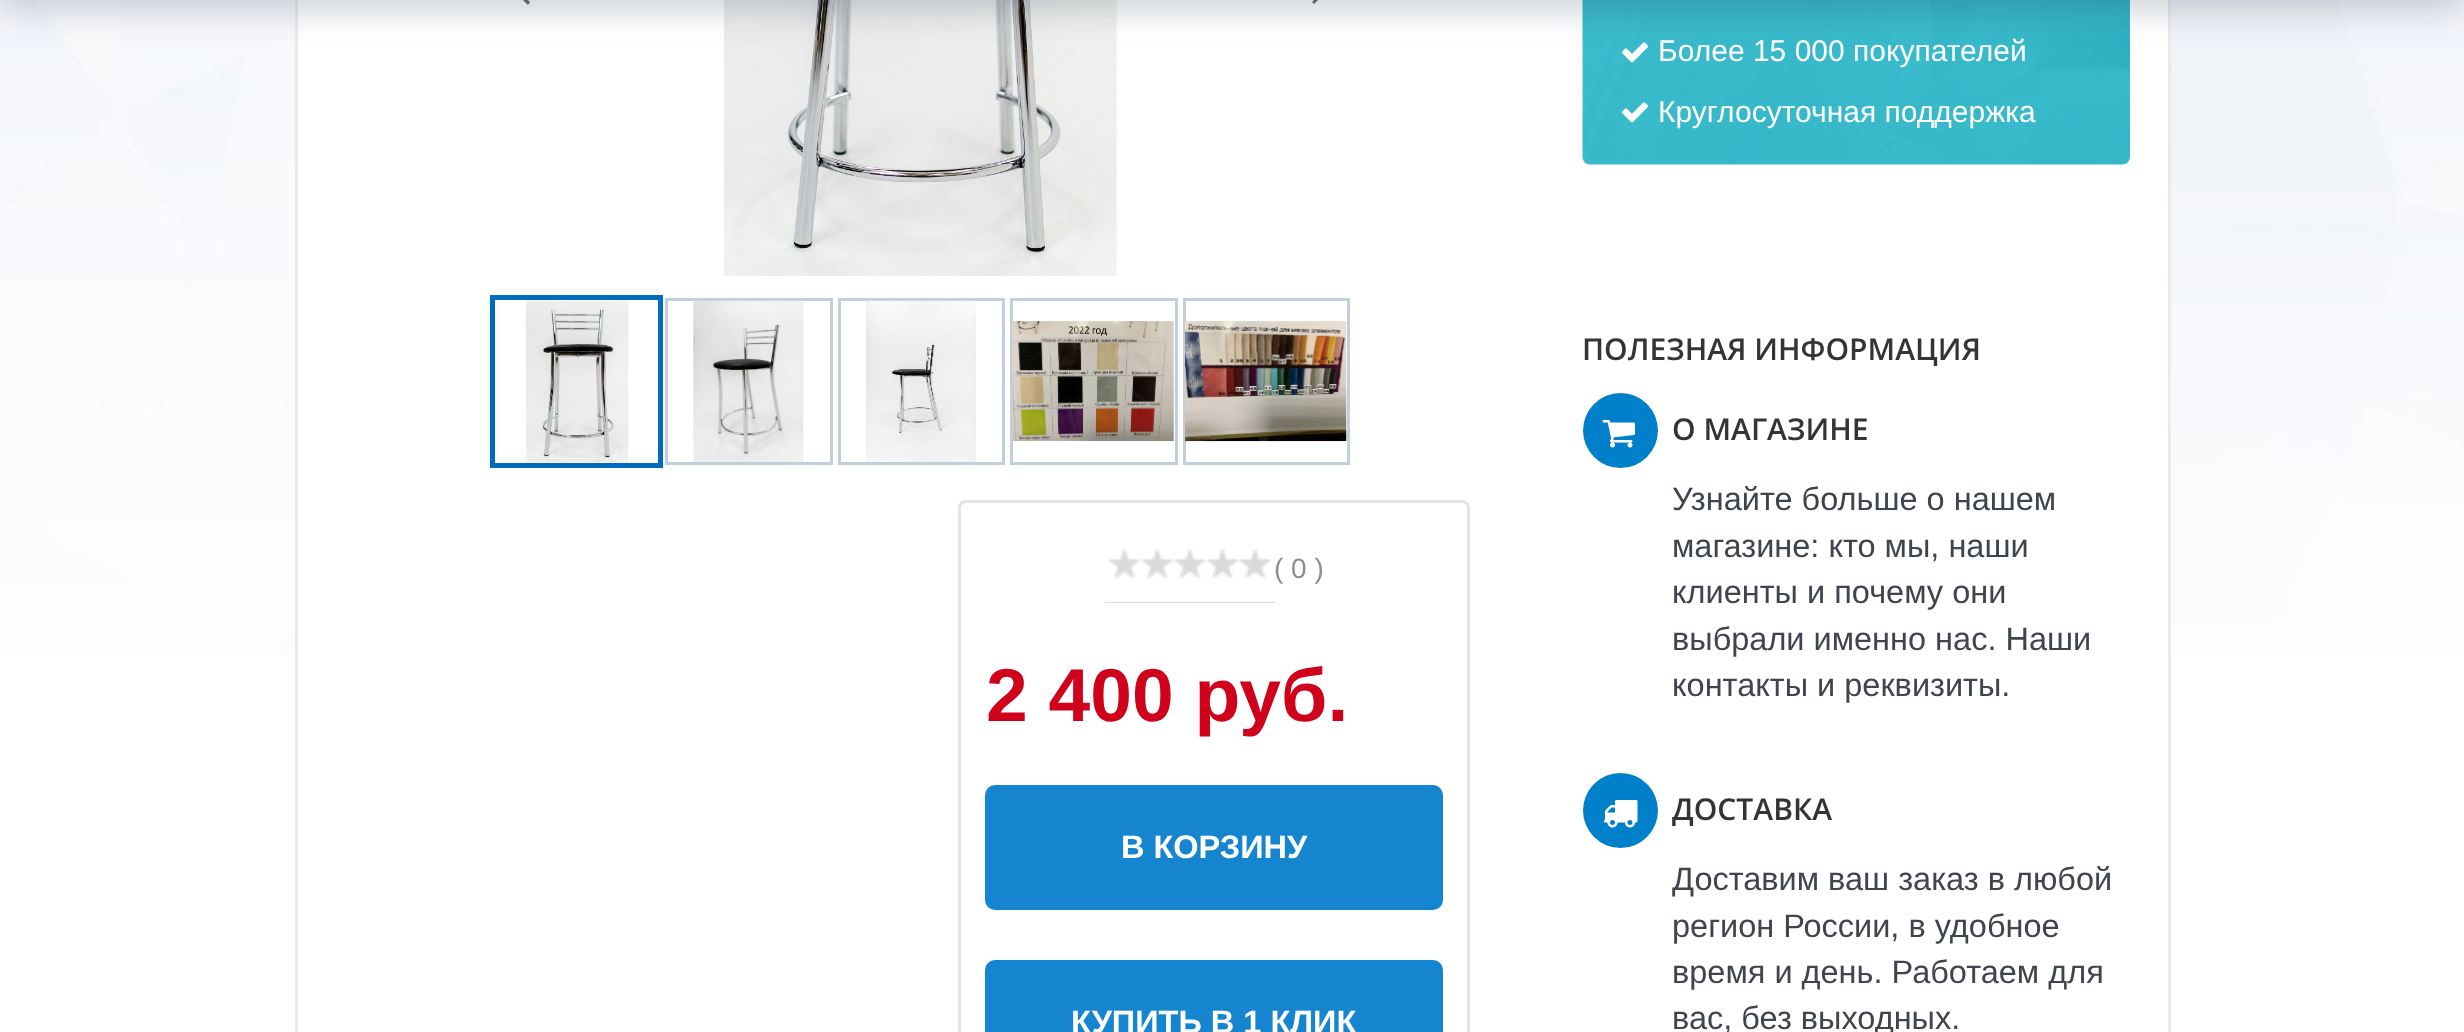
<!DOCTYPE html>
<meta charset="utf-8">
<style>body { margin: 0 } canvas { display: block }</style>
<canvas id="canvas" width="2464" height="1032"></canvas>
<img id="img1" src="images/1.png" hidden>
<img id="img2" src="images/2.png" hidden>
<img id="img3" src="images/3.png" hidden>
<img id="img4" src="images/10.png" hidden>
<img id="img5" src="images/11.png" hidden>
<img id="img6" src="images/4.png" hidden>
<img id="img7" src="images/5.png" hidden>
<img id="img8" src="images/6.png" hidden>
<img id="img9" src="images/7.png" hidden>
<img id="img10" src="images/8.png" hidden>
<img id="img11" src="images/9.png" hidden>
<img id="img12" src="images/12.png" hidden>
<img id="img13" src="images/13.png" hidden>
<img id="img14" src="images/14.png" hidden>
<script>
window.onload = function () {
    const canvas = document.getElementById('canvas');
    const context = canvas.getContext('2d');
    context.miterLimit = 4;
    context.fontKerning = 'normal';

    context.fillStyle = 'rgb(255, 255, 255)';
    context.fillRect(0, 0, 2464, 1032);
    context.drawImage(document.getElementById('img1'), 0, 0, 2464, 655);
    context.fillRect(298, 0, 1870, 655);
    context.fillStyle = 'rgb(234, 235, 236)';
    context.fillRect(2168, 0, 3, 1032);
    context.fillRect(295, 0, 3, 1032);
    context.fillStyle = 'rgb(110, 110, 110)';
    context.beginPath();
    context.moveTo(530, 2);
    context.lineTo(495, -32);
    context.lineTo(530, -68);
    context.lineTo(528, -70);
    context.lineTo(490, -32);
    context.lineTo(528, 5);
    context.closePath();
    context.fill('evenodd');
    context.drawImage(document.getElementById('img2'), 724, 0, 393, 276);
    context.drawImage(document.getElementById('img3'), 1116, 1, 1, 259);
    context.beginPath();
    context.moveTo(1312, -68);
    context.lineTo(1347, -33);
    context.lineTo(1312, 2);
    context.lineTo(1314, 4);
    context.lineTo(1352, -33);
    context.lineTo(1314, -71);
    context.closePath();
    context.fill('evenodd');
    context.drawImage(document.getElementById('img4'), 1582, 0, 548, 165);
    context.drawImage(document.getElementById('img5'), 1622, 42, 26, 21);
    context.fillStyle = 'rgba(32, 54, 74, 0.23)';
    context.filter = 'blur(17.5px)';
    context.beginPath();
    context.rect(0, -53, 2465, 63);
    context.fill();
    context.filter = 'none';
    context.strokeStyle = 'rgb(0, 108, 192)';
    context.lineWidth = 5;
    context.strokeRect(492.5, 297.5, 168, 168);
    context.drawImage(document.getElementById('img6'), 526, 300, 103, 162);
    context.strokeStyle = 'rgb(192, 207, 218)';
    context.lineWidth = 3;
    context.strokeRect(666.5, 299.5, 165, 164);
    context.drawImage(document.getElementById('img7'), 693, 300, 111, 162);
    context.strokeRect(839.5, 299.5, 164, 164);
    context.drawImage(document.getElementById('img8'), 866, 300, 110, 162);
    context.strokeRect(1011.5, 299.5, 165, 164);
    context.drawImage(document.getElementById('img9'), 1012, 321, 162, 121);
    context.strokeRect(1184.5, 299.5, 164, 164);
    context.drawImage(document.getElementById('img10'), 1185, 321, 162, 121);
    context.beginPath();
    context.roundRect(959.5, 501.5, 509, 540, 6.5);
    context.strokeStyle = 'rgb(228, 228, 228)';
    context.stroke();
    context.fillStyle = 'rgb(218, 218, 218)';
    context.fillRect(1105, 546, 170, 57);
    context.drawImage(document.getElementById('img11'), 1105, 528, 170, 74);
    context.fillStyle = 'rgb(20, 133, 206)';
    context.beginPath();
    context.roundRect(986.5, 786.5, 455, 122, 8.5);
    context.fill();
    context.strokeStyle = 'rgb(20, 133, 206)';
    context.stroke();
    context.beginPath();
    context.roundRect(986.5, 961.5, 455, 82, 8.5);
    context.fill();
    context.stroke();
    context.drawImage(document.getElementById('img12'), 1622, 102, 26, 21);
    context.fillStyle = 'rgb(0, 127, 202)';
    context.beginPath();
    context.arc(1620.5, 430.5, 37.5, 0, 2 * Math.PI);
    context.fill();
    context.drawImage(document.getElementById('img13'), 1602, 420, 33, 28);
    context.beginPath();
    context.arc(1620.5, 810.5, 37.5, 0, 2 * Math.PI);
    context.fill();
    context.drawImage(document.getElementById('img14'), 1603, 800, 35, 28);
    context.font = '28px Liberation Sans';
    context.fillStyle = 'rgb(141, 141, 141)';
    context.fillText('( 0 )', 1274, 578);
    context.font = 'bold 75px Liberation Sans';
    context.fillStyle = 'rgb(208, 2, 27)';
    context.fillText('2 400 руб.', 986, 721);
    context.font = 'bold 32.5px Liberation Sans';
    context.fillStyle = 'rgb(255, 255, 255)';
    context.fillText('В КОРЗИНУ', 1121, 858);
    context.fillText('КУПИТЬ В 1 КЛИК', 1071, 1033);
    context.font = '30px Liberation Sans';
    context.fillText('Более 15 000 покупателей', 1658, 61);
    context.fillText('Круглосуточная поддержка', 1658, 122);
    context.font = '600 30px Open Sans';
    context.fillStyle = 'rgb(52, 52, 52)';
    context.fillText('ПОЛЕЗНАЯ ИНФОРМАЦИЯ', 1582, 360);
    context.fillText('О МАГАЗИНЕ', 1672, 440);
    context.font = '32.5px Liberation Sans';
    context.fillStyle = 'rgb(62, 69, 76)';
    context.fillText('Узнайте больше о нашем', 1672, 510);
    context.fillText('магазине: кто мы, наши', 1672, 557);
    context.fillText('клиенты и почему они', 1672, 603);
    context.fillText('выбрали именно нас. Наши', 1672, 650);
    context.fillText('контакты и реквизиты.', 1672, 696);
    context.font = '600 30px Open Sans';
    context.fillStyle = 'rgb(52, 52, 52)';
    context.fillText('ДОСТАВКА', 1672, 820);
    context.font = '32.5px Liberation Sans';
    context.fillStyle = 'rgb(62, 69, 76)';
    context.fillText('Доставим ваш заказ в любой', 1672, 890);
    context.fillText('регион России, в удобное', 1672, 937);
    context.fillText('время и день. Работаем для', 1672, 983);
    context.fillText('вас, без выходных.', 1672, 1029);
};
</script>
